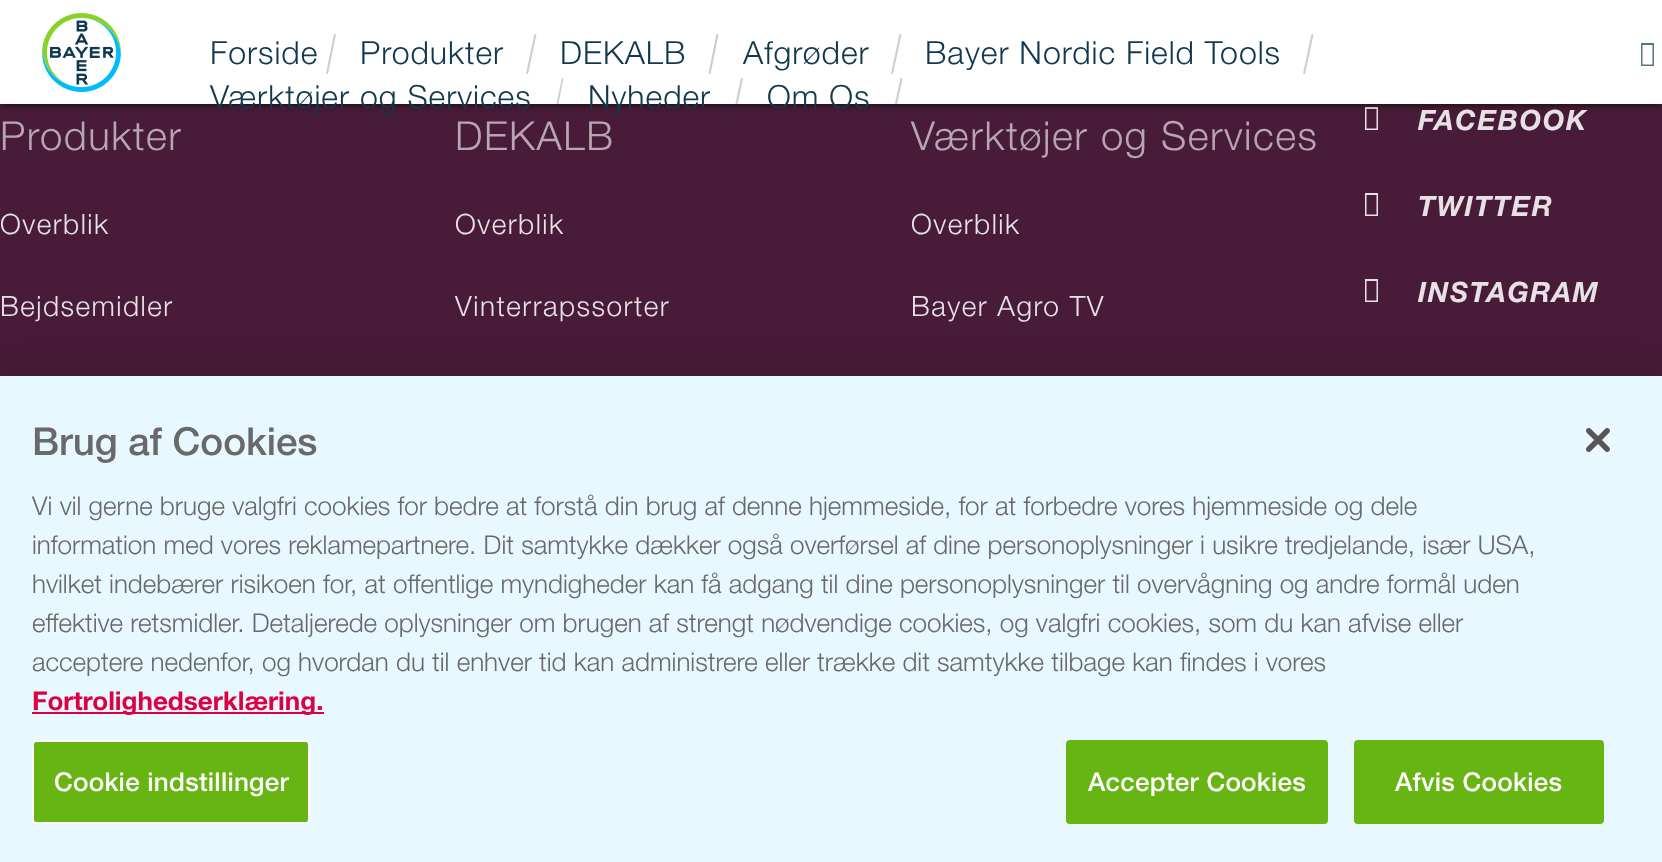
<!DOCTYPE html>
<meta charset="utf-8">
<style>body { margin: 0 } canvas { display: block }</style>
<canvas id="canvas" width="1662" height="862"></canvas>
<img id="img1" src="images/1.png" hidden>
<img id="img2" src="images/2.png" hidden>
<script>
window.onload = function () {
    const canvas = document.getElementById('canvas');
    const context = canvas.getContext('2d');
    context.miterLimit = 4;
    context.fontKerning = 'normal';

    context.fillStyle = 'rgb(72, 28, 56)';
    context.fillRect(0, 0, 1662, 862);
    context.fillStyle = 'rgb(231, 225, 229)';
    context.beginPath();
    context.moveTo(1365, 130);
    context.lineTo(1365, 107);
    context.lineTo(1378, 107);
    context.lineTo(1378, 130);
    context.closePath();
    context.moveTo(1366.5, 128.5);
    context.lineTo(1376.5, 128.5);
    context.lineTo(1376.5, 109);
    context.lineTo(1366.5, 109);
    context.closePath();
    context.fill();
    context.fillStyle = 'rgba(0, 0, 0, 0.12)';
    context.filter = 'blur(5px)';
    context.beginPath();
    context.rect(0, 2, 1662, 104);
    context.fill();
    context.filter = 'none';
    context.fillStyle = 'rgba(0, 0, 0, 0.14)';
    context.filter = 'blur(2px)';
    context.beginPath();
    context.rect(0, 4, 1662, 104);
    context.fill();
    context.filter = 'none';
    context.fillStyle = 'rgba(0, 0, 0, 0.2)';
    context.filter = 'blur(1px)';
    context.beginPath();
    context.rect(4, 10, 1654, 96);
    context.fill();
    context.filter = 'none';
    context.fillStyle = 'rgb(255, 255, 255)';
    context.fillRect(0, 0, 1662, 104);
    context.drawImage(document.getElementById('img1'), 42, 13, 79, 79);
    context.fillStyle = 'rgb(198, 207, 213)';
    context.beginPath();
    context.moveTo(334, 34);
    context.lineTo(336, 34.5);
    context.lineTo(328, 74);
    context.lineTo(326, 73.5);
    context.closePath();
    context.fill();
    context.beginPath();
    context.moveTo(534.5, 34);
    context.lineTo(536.5, 34.5);
    context.lineTo(528, 74);
    context.lineTo(526, 73.5);
    context.closePath();
    context.fill();
    context.beginPath();
    context.moveTo(716.5, 34);
    context.lineTo(718.5, 34.5);
    context.lineTo(710.5, 74);
    context.lineTo(708.5, 73.5);
    context.closePath();
    context.fill();
    context.beginPath();
    context.moveTo(899.5, 34);
    context.lineTo(901.5, 34.5);
    context.lineTo(893, 74);
    context.lineTo(891, 73.5);
    context.closePath();
    context.fill();
    context.beginPath();
    context.moveTo(1311.5, 34);
    context.lineTo(1313.5, 34.5);
    context.lineTo(1305, 74);
    context.lineTo(1303, 73.5);
    context.closePath();
    context.fill();
    context.fillStyle = 'rgba(16, 56, 79, 0.24)';
    context.beginPath();
    context.moveTo(562, 78);
    context.lineTo(563.5, 78.5);
    context.lineTo(555.5, 118);
    context.lineTo(553.5, 117.5);
    context.closePath();
    context.fill();
    context.beginPath();
    context.moveTo(741, 78);
    context.lineTo(743, 78.5);
    context.lineTo(734.5, 118);
    context.lineTo(732.5, 117.5);
    context.closePath();
    context.fill();
    context.beginPath();
    context.moveTo(900.5, 78);
    context.lineTo(902.5, 78.5);
    context.lineTo(894, 118);
    context.lineTo(892, 117.5);
    context.closePath();
    context.fill();
    context.fillStyle = 'rgb(88, 116, 132)';
    context.beginPath();
    context.moveTo(1641, 66);
    context.lineTo(1641, 43);
    context.lineTo(1654, 43);
    context.lineTo(1654, 66);
    context.closePath();
    context.moveTo(1642.5, 64.5);
    context.lineTo(1652.5, 64.5);
    context.lineTo(1652.5, 45);
    context.lineTo(1642.5, 45);
    context.closePath();
    context.fill();
    context.fillStyle = 'rgb(231, 225, 229)';
    context.beginPath();
    context.moveTo(1365, 216);
    context.lineTo(1365, 193);
    context.lineTo(1378, 193);
    context.lineTo(1378, 216);
    context.closePath();
    context.moveTo(1366.5, 214.5);
    context.lineTo(1376.5, 214.5);
    context.lineTo(1376.5, 195);
    context.lineTo(1366.5, 195);
    context.closePath();
    context.fill();
    context.beginPath();
    context.moveTo(1365, 302);
    context.lineTo(1365, 279);
    context.lineTo(1378, 279);
    context.lineTo(1378, 302);
    context.closePath();
    context.moveTo(1366.5, 300.5);
    context.lineTo(1376.5, 300.5);
    context.lineTo(1376.5, 281);
    context.lineTo(1366.5, 281);
    context.closePath();
    context.fill();
    context.fillStyle = 'rgba(0, 0, 0, 0.2)';
    context.filter = 'blur(18px)';
    context.beginPath();
    context.rect(0, 376, 1662, 486);
    context.fill();
    context.filter = 'none';
    context.fillStyle = 'rgb(231, 248, 255)';
    context.fillRect(0, 376, 1662, 486);
    context.fillStyle = 'rgb(222, 0, 67)';
    context.fillRect(32, 712, 292, 2);
    context.fillStyle = 'rgb(102, 181, 18)';
    context.beginPath();
    context.roundRect(33, 741, 276, 82, 3);
    context.fill();
    context.strokeStyle = 'rgb(255, 255, 255)';
    context.lineWidth = 2;
    context.stroke();
    context.beginPath();
    context.roundRect(1067, 741, 260, 82, 3);
    context.fill();
    context.strokeStyle = 'rgb(102, 181, 18)';
    context.stroke();
    context.beginPath();
    context.roundRect(1355, 741, 248, 82, 3);
    context.fill();
    context.stroke();
    context.drawImage(document.getElementById('img2'), 1586, 428, 24, 24);
    context.letterSpacing = '1px';
    context.font = '300 32px Helvetica Neue';
    context.fillStyle = 'rgb(16, 56, 79)';
    context.fillText('Forside', 210, 64);
    context.fillText('Produkter', 360, 64);
    context.fillText('DEKALB', 560, 64);
    context.fillText('Afgrøder', 743, 64);
    context.fillText('Bayer Nordic Field Tools', 925, 64);
    context.fillText('Værktøjer og Services', 210, 108);
    context.fillText('Nyheder', 588, 108);
    context.fillText('Om Os', 767, 108);
    context.letterSpacing = '1.5px';
    context.font = '300 40px Helvetica Neue';
    context.fillStyle = 'rgb(183, 166, 177)';
    context.fillText('Produkter', 0, 150);
    context.font = '300 28px Helvetica Neue';
    context.fillStyle = 'rgb(231, 225, 229)';
    context.fillText('Overblik', 0, 234);
    context.fillText('Bejdsemidler', 0, 316);
    context.font = '300 40px Helvetica Neue';
    context.fillStyle = 'rgb(183, 166, 177)';
    context.fillText('DEKALB', 455, 150);
    context.font = '300 28px Helvetica Neue';
    context.fillStyle = 'rgb(231, 225, 229)';
    context.fillText('Overblik', 455, 234);
    context.fillText('Vinterrapssorter', 455, 316);
    context.font = '300 40px Helvetica Neue';
    context.fillStyle = 'rgb(183, 166, 177)';
    context.fillText('Værktøjer og Services', 911, 150);
    context.font = '300 28px Helvetica Neue';
    context.fillStyle = 'rgb(231, 225, 229)';
    context.fillText('Overblik', 911, 234);
    context.fillText('Bayer Agro TV', 911, 316);
    context.font = 'italic bold 28px Helvetica Neue';
    context.fillText('FACEBOOK', 1418, 130);
    context.fillText('TWITTER', 1418, 216);
    context.fillText('INSTAGRAM', 1418, 302);
    context.letterSpacing = '0px';
    context.font = '500 38.5px Helvetica Neue';
    context.fillStyle = 'rgb(105, 105, 105)';
    context.fillText('Brug af Cookies', 32, 455);
    context.font = '300 26.02px Helvetica Neue';
    context.fillText('Vi vil gerne bruge valgfri cookies for bedre at forstå din brug af denne hjemmeside, for at forbedre vores hjemmeside og dele', 32, 515);
    context.fillText('information med vores reklamepartnere. Dit samtykke dækker også overførsel af dine personoplysninger i usikre tredjelande, især USA,', 32, 554);
    context.fillText('hvilket indebærer risikoen for, at offentlige myndigheder kan få adgang til dine personoplysninger til overvågning og andre formål uden', 32, 593);
    context.fillText('effektive retsmidler. Detaljerede oplysninger om brugen af strengt nødvendige cookies, og valgfri cookies, som du kan afvise eller', 32, 632);
    context.fillText('acceptere nedenfor, og hvordan du til enhver tid kan administrere eller trække dit samtykke tilbage kan findes i vores', 32, 671);
    context.font = 'bold 26.02px Helvetica Neue';
    context.fillStyle = 'rgb(222, 0, 67)';
    context.fillText('Fortrolighedserklæring.', 32, 710);
    context.letterSpacing = '0.25px';
    context.font = '500 26.02px Helvetica Neue';
    context.fillStyle = 'rgb(255, 255, 255)';
    context.fillText('Cookie indstillinger', 54, 791);
    context.fillText('Accepter Cookies', 1088, 791);
    context.fillText('Afvis Cookies', 1395, 791);
};
</script>
